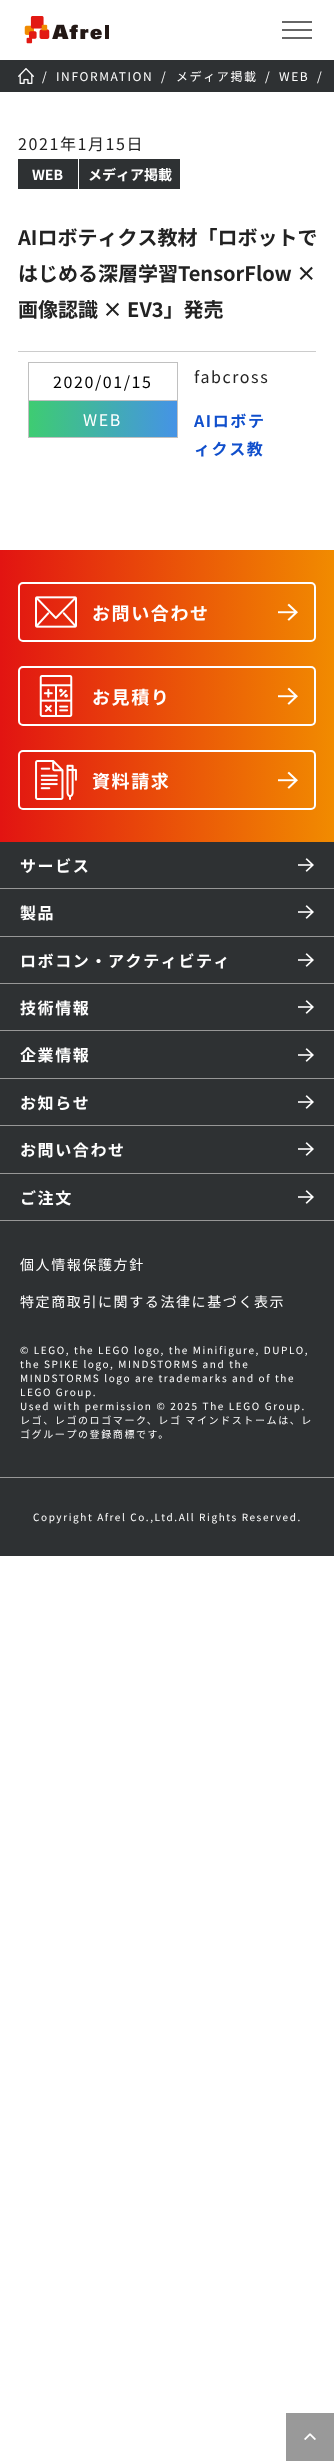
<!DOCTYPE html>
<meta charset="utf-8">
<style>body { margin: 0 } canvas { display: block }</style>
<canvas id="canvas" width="334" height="2461"></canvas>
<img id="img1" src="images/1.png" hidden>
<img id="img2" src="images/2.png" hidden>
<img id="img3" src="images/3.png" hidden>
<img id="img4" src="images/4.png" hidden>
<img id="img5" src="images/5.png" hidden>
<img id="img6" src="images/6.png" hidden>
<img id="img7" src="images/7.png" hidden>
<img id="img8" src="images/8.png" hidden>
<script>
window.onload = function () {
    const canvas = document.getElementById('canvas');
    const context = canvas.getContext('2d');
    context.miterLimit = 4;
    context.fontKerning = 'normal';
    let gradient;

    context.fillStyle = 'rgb(255, 255, 255)';
    context.fillRect(0, 0, 334, 2461);
    context.drawImage(document.getElementById('img1'), 24, 16, 85, 28);
    context.fillStyle = 'rgb(102, 102, 102)';
    context.fillRect(282, 21, 30, 2);
    context.fillRect(282, 29, 30, 2);
    context.fillRect(282, 37, 30, 2);
    context.fillStyle = 'rgb(46, 49, 51)';
    context.fillRect(0, 60, 334, 32);
    context.drawImage(document.getElementById('img2'), 18, 68, 16, 16);
    context.fillStyle = 'rgb(204, 204, 204)';
    context.fillRect(18, 351, 298, 1);
    context.fillStyle = 'rgb(46, 49, 51)';
    context.fillRect(18, 159, 60, 30);
    context.fillRect(79, 159, 101, 30);
    context.strokeStyle = 'rgb(192, 192, 192)';
    context.strokeRect(28.5, 362.5, 149, 75);
    context.fillStyle = 'rgb(192, 192, 192)';
    context.fillRect(29, 400, 148, 1);
    gradient = context.createLinearGradient(29, 419, 177, 419);
    gradient.addColorStop(0, 'rgb(62, 204, 114)');
    gradient.addColorStop(1, 'rgb(69, 147, 230)');
    context.fillStyle = gradient;
    context.fillRect(29, 401, 148, 36);
    gradient = context.createLinearGradient(0, 696, 334, 696);
    gradient.addColorStop(0, 'rgb(226, 20, 18)');
    gradient.addColorStop(1, 'rgb(241, 139, 0)');
    context.fillStyle = gradient;
    context.fillRect(0, 550, 334, 292);
    context.beginPath();
    context.roundRect(19, 583, 296, 58, 4);
    context.strokeStyle = 'rgb(255, 255, 255)';
    context.lineWidth = 2;
    context.stroke();
    context.drawImage(document.getElementById('img3'), 35, 596, 42, 32);
    context.drawImage(document.getElementById('img4'), 278, 603, 20, 18);
    context.beginPath();
    context.roundRect(19, 667, 296, 58, 4);
    context.stroke();
    context.drawImage(document.getElementById('img5'), 39, 675, 34, 42);
    context.drawImage(document.getElementById('img4'), 278, 687, 20, 18);
    context.beginPath();
    context.roundRect(19, 751, 296, 58, 4);
    context.stroke();
    context.drawImage(document.getElementById('img6'), 35, 760, 42, 40);
    context.drawImage(document.getElementById('img4'), 278, 771, 20, 18);
    context.fillStyle = 'rgb(46, 49, 51)';
    context.fillRect(0, 842, 334, 635);
    context.fillStyle = 'rgb(151, 151, 151)';
    context.fillRect(0, 888, 334, 1);
    context.drawImage(document.getElementById('img7'), 298, 858, 16, 14);
    context.fillRect(0, 936, 334, 1);
    context.drawImage(document.getElementById('img7'), 298, 905, 16, 14);
    context.fillRect(0, 983, 334, 1);
    context.drawImage(document.getElementById('img7'), 298, 953, 16, 14);
    context.fillRect(0, 1030, 334, 1);
    context.drawImage(document.getElementById('img7'), 298, 1000, 16, 14);
    context.fillRect(0, 1078, 334, 1);
    context.drawImage(document.getElementById('img7'), 298, 1048, 16, 14);
    context.fillRect(0, 1125, 334, 1);
    context.drawImage(document.getElementById('img7'), 298, 1095, 16, 14);
    context.fillRect(0, 1173, 334, 1);
    context.drawImage(document.getElementById('img7'), 298, 1142, 16, 14);
    context.fillRect(0, 1220, 334, 1);
    context.drawImage(document.getElementById('img7'), 298, 1190, 16, 14);
    context.fillStyle = 'rgb(153, 153, 153)';
    context.fillRect(286, 2413, 48, 48);
    context.drawImage(document.getElementById('img8'), 304, 2433, 12, 7);
    context.fillStyle = 'rgb(46, 49, 51)';
    context.fillRect(0, 1478, 334, 78);
    context.fillStyle = 'rgb(151, 151, 151)';
    context.fillRect(0, 1477, 334, 1);
    context.letterSpacing = '1.6px';
    context.font = '12px Noto Sans JP';
    context.fillStyle = 'rgb(255, 255, 255)';
    context.fillText('/', 42, 81);
    context.fillText('INFORMATION', 56, 81);
    context.fillText('/', 161, 81);
    context.fillText('メディア掲載', 176, 81);
    context.fillText('/', 265, 81);
    context.fillText('WEB', 279, 81);
    context.fillText('/', 317, 81);
    context.font = '16px Noto Sans JP';
    context.fillStyle = 'rgb(34, 34, 34)';
    context.fillText('2021年1月15日', 18, 150);
    context.letterSpacing = '0px';
    context.font = 'bold 14px Noto Sans JP';
    context.fillStyle = 'rgb(255, 255, 255)';
    context.fillText('WEB', 32, 180);
    context.fillText('メディア掲載', 88, 180);
    context.font = 'bold 20px Noto Sans JP';
    context.fillStyle = 'rgb(34, 34, 34)';
    context.fillText('AIロボティクス教材「ロボットで', 18, 245);
    context.fillText('はじめる深層学習TensorFlow ×', 18, 281);
    context.fillText('画像認識 × EV3」発売', 18, 317);
    context.letterSpacing = '1.6px';
    context.font = '16px Noto Sans JP';
    context.fillStyle = 'rgb(0, 0, 0)';
    context.fillText('2020/01/15', 53, 388);
    context.fillStyle = 'rgb(255, 255, 255)';
    context.fillText('WEB', 83, 426);
    context.fillStyle = 'rgb(34, 34, 34)';
    context.fillText('fabcross', 194, 383);
    context.font = 'bold 16px Noto Sans JP';
    context.fillStyle = 'rgb(16, 79, 204)';
    context.fillText('AIロボテ', 194, 427);
    context.fillText('ィクス教', 194, 455);
    context.font = 'bold 18px Noto Sans JP';
    context.fillStyle = 'rgb(255, 255, 255)';
    context.fillText('お問い合わせ', 92, 620);
    context.fillText('お見積り', 92, 704);
    context.fillText('資料請求', 92, 788);
    context.font = 'bold 16px Noto Sans JP';
    context.fillText('サービス', 20, 872);
    context.fillText('製品', 20, 919);
    context.fillText('ロボコン・アクティビティ', 20, 967);
    context.fillText('技術情報', 20, 1014);
    context.fillText('企業情報', 20, 1061);
    context.fillText('お知らせ', 20, 1109);
    context.fillText('お問い合わせ', 20, 1156);
    context.fillText('ご注文', 20, 1204);
    context.font = '14px Noto Sans JP';
    context.fillText('個人情報保護方針', 20, 1270);
    context.fillText('特定商取引に関する法律に基づく表示', 20, 1307);
    context.font = '10px Noto Sans JP';
    context.fillText('© LEGO, the LEGO logo, the Minifigure, DUPLO,', 20, 1354);
    context.fillText('the SPIKE logo, MINDSTORMS and the', 20, 1368);
    context.fillText('MINDSTORMS logo are trademarks and of the', 20, 1382);
    context.fillText('LEGO Group.', 20, 1396);
    context.fillText('Used with permission © 2025 The LEGO Group.', 20, 1410);
    context.fillText('レゴ、レゴのロゴマーク、レゴ マインドストームは、レ', 20, 1424);
    context.fillText('ゴグループの登録商標です。', 20, 1438);
    context.fillText('Copyright Afrel Co.,Ltd.All Rights Reserved.', 33, 1521);
};
</script>
